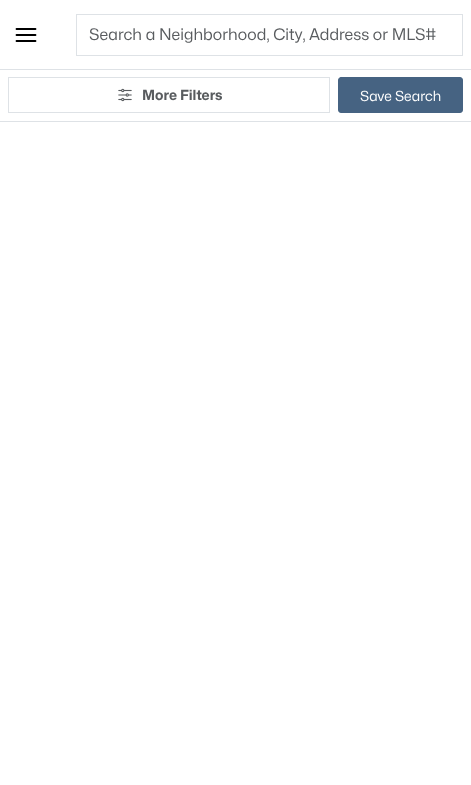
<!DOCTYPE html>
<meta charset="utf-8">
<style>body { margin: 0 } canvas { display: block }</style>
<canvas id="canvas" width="471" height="785"></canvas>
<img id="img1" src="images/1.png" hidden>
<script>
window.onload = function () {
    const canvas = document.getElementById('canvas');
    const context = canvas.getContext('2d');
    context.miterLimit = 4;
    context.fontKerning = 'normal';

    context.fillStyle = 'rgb(255, 255, 255)';
    context.fillRect(0, 0, 471, 785);
    context.fillStyle = 'rgb(222, 226, 230)';
    context.fillRect(0, 69, 471, 1);
    context.beginPath();
    context.moveTo(16.5, 29);
    context.lineTo(35.5, 29);
    context.moveTo(16.5, 35);
    context.lineTo(35.5, 35);
    context.moveTo(16.5, 41);
    context.lineTo(35.5, 41);
    context.strokeStyle = 'rgb(0, 0, 0)';
    context.lineWidth = 1.8;
    context.lineCap = 'round';
    context.lineJoin = 'round';
    context.stroke();
    context.strokeStyle = 'rgb(222, 226, 230)';
    context.lineWidth = 1;
    context.lineJoin = 'miter';
    context.strokeRect(76.5, 14.5, 386, 41);
    context.fillRect(0, 121, 471, 1);
    context.strokeRect(8.5, 77.5, 321, 35);
    context.drawImage(document.getElementById('img1'), 118, 88, 14, 14);
    context.fillStyle = 'rgb(70, 99, 130)';
    context.beginPath();
    context.roundRect(338.5, 77.5, 124, 35, 2.5);
    context.fill();
    context.strokeStyle = 'rgb(70, 99, 130)';
    context.stroke();
    context.font = '16px Mona Sans';
    context.fillStyle = 'rgb(89, 92, 95)';
    context.fillText('Search a Neighborhood, City, Address or MLS#', 89, 40);
    context.font = 'bold 14px Mona Sans';
    context.fillText('More Filters', 142, 100);
    context.font = '14px Mona Sans';
    context.fillStyle = 'rgb(255, 255, 255)';
    context.fillText('Save Search', 360, 101);
};
</script>
